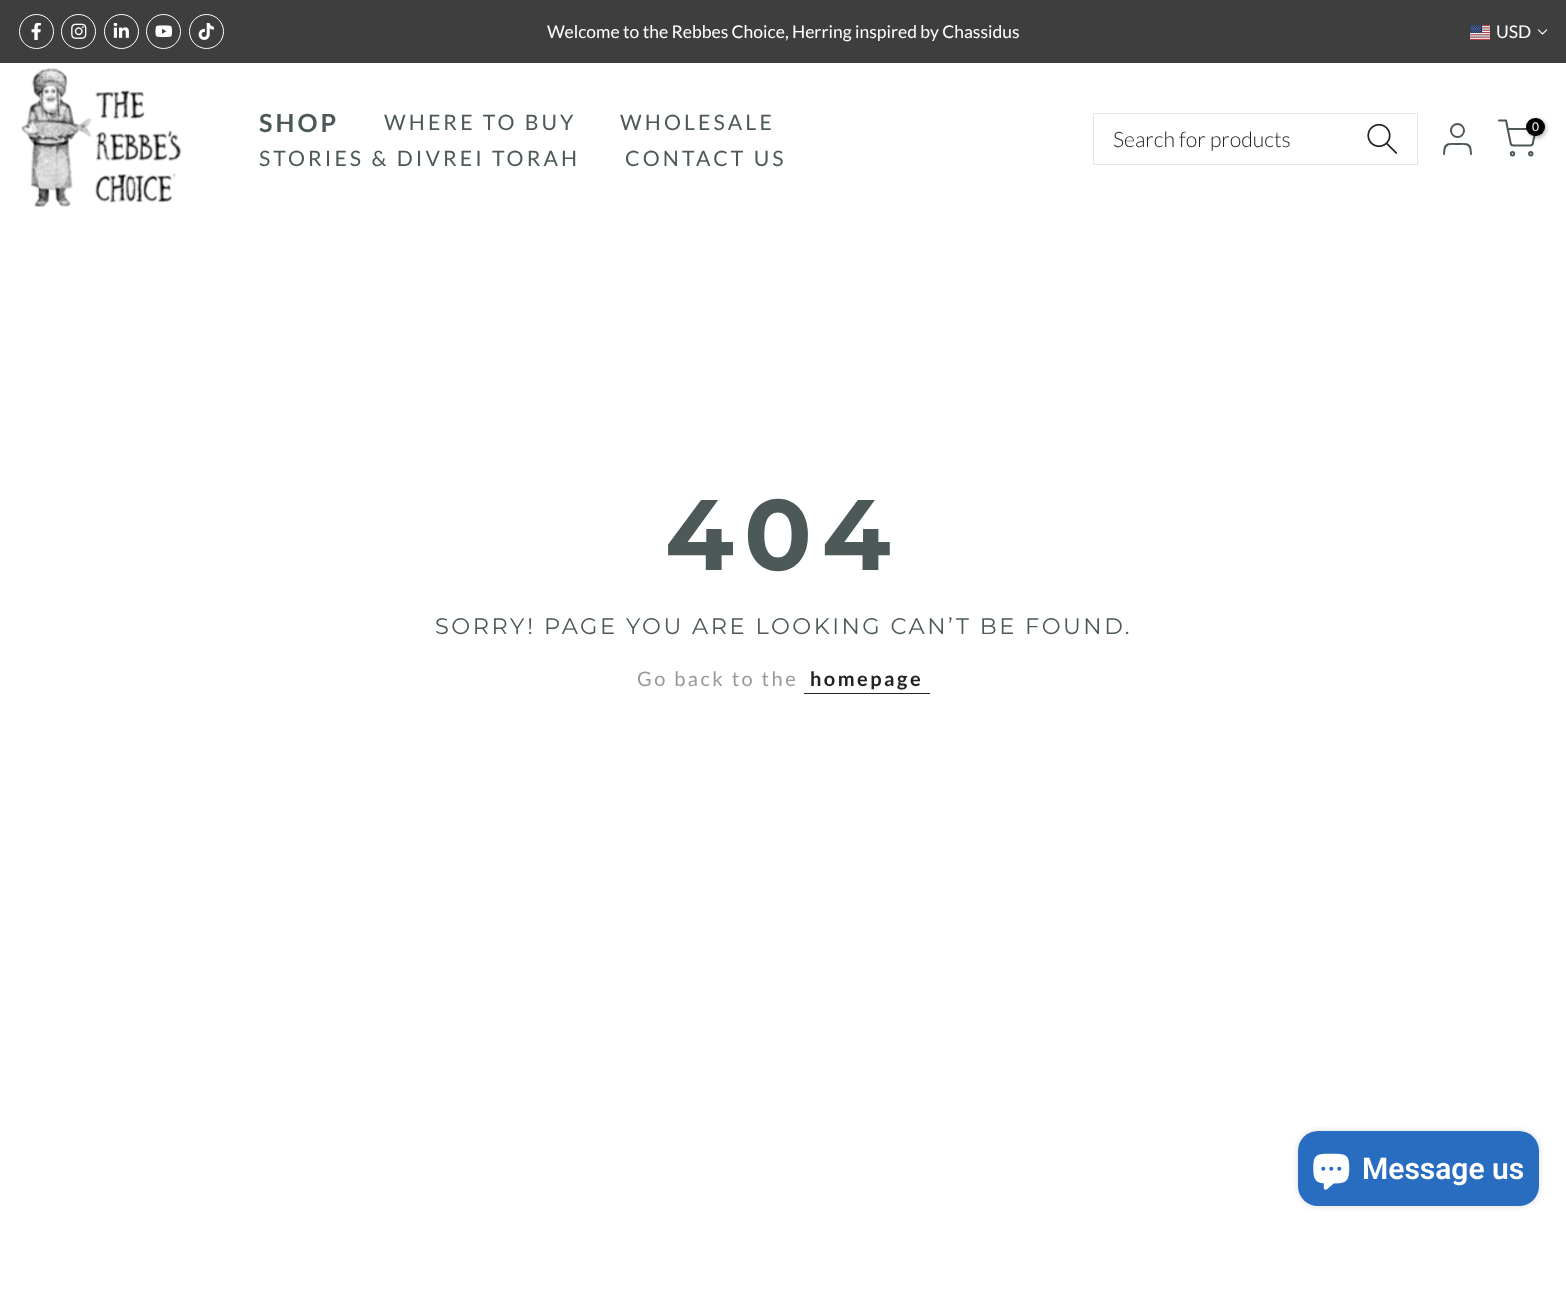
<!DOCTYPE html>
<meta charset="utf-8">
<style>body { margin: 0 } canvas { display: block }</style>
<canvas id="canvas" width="1566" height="1312"></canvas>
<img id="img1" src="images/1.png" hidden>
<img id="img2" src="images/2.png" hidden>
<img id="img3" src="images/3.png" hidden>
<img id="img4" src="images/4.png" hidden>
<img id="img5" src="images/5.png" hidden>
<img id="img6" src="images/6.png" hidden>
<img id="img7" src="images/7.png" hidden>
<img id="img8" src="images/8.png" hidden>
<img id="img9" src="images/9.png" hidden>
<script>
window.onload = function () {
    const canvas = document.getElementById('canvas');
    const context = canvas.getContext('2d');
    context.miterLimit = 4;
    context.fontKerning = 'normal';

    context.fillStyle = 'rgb(255, 255, 255)';
    context.fillRect(0, 0, 1566, 1312);
    context.fillStyle = 'rgb(62, 62, 62)';
    context.fillRect(0, 0, 1566, 63);
    context.beginPath();
    context.arc(36.5, 31.5, 17, 0, 2 * Math.PI);
    context.strokeStyle = 'rgb(255, 255, 255)';
    context.stroke();
    context.drawImage(document.getElementById('img1'), 31, 23, 10, 17);
    context.beginPath();
    context.arc(78.5, 31.5, 17, 0, 2 * Math.PI);
    context.stroke();
    context.drawImage(document.getElementById('img2'), 71, 23, 16, 16);
    context.beginPath();
    context.arc(121.5, 31.5, 17, 0, 2 * Math.PI);
    context.stroke();
    context.drawImage(document.getElementById('img3'), 113, 23, 16, 15);
    context.beginPath();
    context.arc(163.5, 31.5, 17, 0, 2 * Math.PI);
    context.stroke();
    context.drawImage(document.getElementById('img4'), 155, 25, 18, 13);
    context.beginPath();
    context.arc(206.5, 31.5, 17, 0, 2 * Math.PI);
    context.stroke();
    context.drawImage(document.getElementById('img5'), 198, 23, 16, 17);
    context.drawImage(document.getElementById('img6'), 1470, 25, 20, 15);
    context.beginPath();
    context.moveTo(1546.5, 30);
    context.lineTo(1542.5, 34);
    context.lineTo(1538.5, 30);
    context.lineWidth = 1.1;
    context.lineCap = 'square';
    context.stroke();
    context.drawImage(document.getElementById('img7'), 21, 68, 161, 139);
    context.strokeStyle = 'rgb(228, 230, 230)';
    context.lineWidth = 1;
    context.strokeRect(1093.5, 113.5, 324, 51);
    context.drawImage(document.getElementById('img8'), 1367, 123, 31, 31);
    context.beginPath();
    context.arc(1457.5, 130.5, 6.5, 0, 2 * Math.PI);
    context.strokeStyle = 'rgb(77, 89, 89)';
    context.lineWidth = 2;
    context.stroke();
    context.beginPath();
    context.moveTo(1471, 154);
    context.lineTo(1470.5, 149);
    context.bezierCurveTo(1469.5, 142.5, 1462.5, 144, 1457.5, 144);
    context.bezierCurveTo(1452.5, 144, 1445.5, 142.5, 1444.5, 149);
    context.lineTo(1444, 154);
    context.lineCap = 'round';
    context.lineJoin = 'round';
    context.stroke();
    context.beginPath();
    context.moveTo(1499, 120.5);
    context.lineTo(1506, 120.5);
    context.lineTo(1510.5, 142.5);
    context.bezierCurveTo(1510.5, 144.5, 1512, 145.5, 1513.5, 145.5);
    context.lineTo(1530, 145.5);
    context.bezierCurveTo(1531.5, 145.5, 1533, 144.5, 1533, 142.5);
    context.lineTo(1536, 129);
    context.lineTo(1507.5, 129);
    context.stroke();
    context.fillStyle = 'rgba(0, 0, 0, 0.3)';
    context.filter = 'blur(2px)';
    context.beginPath();
    context.roundRect(1528, 119, 18, 19, 9);
    context.fill();
    context.filter = 'none';
    context.fillStyle = 'rgb(0, 0, 0)';
    context.beginPath();
    context.roundRect(1526, 118, 19, 18, 9);
    context.fill();
    context.beginPath();
    context.arc(1512.5, 153.8, 1.7, 0, 2 * Math.PI);
    context.stroke();
    context.beginPath();
    context.arc(1530.8, 153.8, 1.7, 0, 2 * Math.PI);
    context.stroke();
    context.fillStyle = 'rgb(34, 34, 34)';
    context.fillRect(804, 693, 126, 1);
    context.fillStyle = 'rgba(0, 0, 0, 0.15)';
    context.filter = 'blur(3px)';
    context.beginPath();
    context.roundRect(1298, 1131, 241, 75, 20);
    context.fill();
    context.filter = 'none';
    context.fillStyle = 'rgb(41, 109, 193)';
    context.beginPath();
    context.roundRect(1298, 1131, 241, 75, 20);
    context.fill();
    context.drawImage(document.getElementById('img9'), 1313, 1153, 37, 37);
    context.font = '17.5px Lato';
    context.fillStyle = 'rgb(255, 255, 255)';
    context.fillText('Welcome to the Rebbes Choice, Herring inspired by Chassidus', 547, 38);
    context.fillText('USD', 1496, 38);
    context.letterSpacing = '3.1px';
    context.font = 'bold 25px Lato';
    context.fillStyle = 'rgb(77, 89, 89)';
    context.fillText('SHOP', 259, 132);
    context.font = '21.25px Lato';
    context.fillText('WHERE TO BUY', 384, 130);
    context.fillText('WHOLESALE', 620, 130);
    context.fillText('STORIES & DIVREI TORAH', 259, 166);
    context.fillText('CONTACT US', 625, 166);
    context.letterSpacing = '0px';
    context.font = '300 21.25px Lato';
    context.fillStyle = 'rgb(34, 34, 34)';
    context.fillText('Search for products', 1113, 147);
    context.font = '12px Lato';
    context.fillStyle = 'rgb(255, 255, 255)';
    context.fillText('0', 1532, 131);
    context.letterSpacing = '10px';
    context.font = 'bold 100px Montserrat';
    context.fillStyle = 'rgb(77, 89, 89)';
    context.fillText('404', 665, 570);
    context.letterSpacing = '2.5px';
    context.font = '22.5px Montserrat';
    context.fillText('SORRY! PAGE YOU ARE LOOKING CAN’T BE FOUND.', 435, 634);
    context.font = '20px Lato';
    context.fillStyle = 'rgb(153, 153, 153)';
    context.fillText('Go back to the', 637, 686);
    context.font = 'bold 20px Lato';
    context.fillStyle = 'rgb(34, 34, 34)';
    context.fillText('homepage', 810, 686);
    context.letterSpacing = '0px';
    context.font = '600 30px Roboto';
    context.fillStyle = 'rgb(255, 255, 255)';
    context.fillText('Message us', 1362, 1179);
};
</script>
